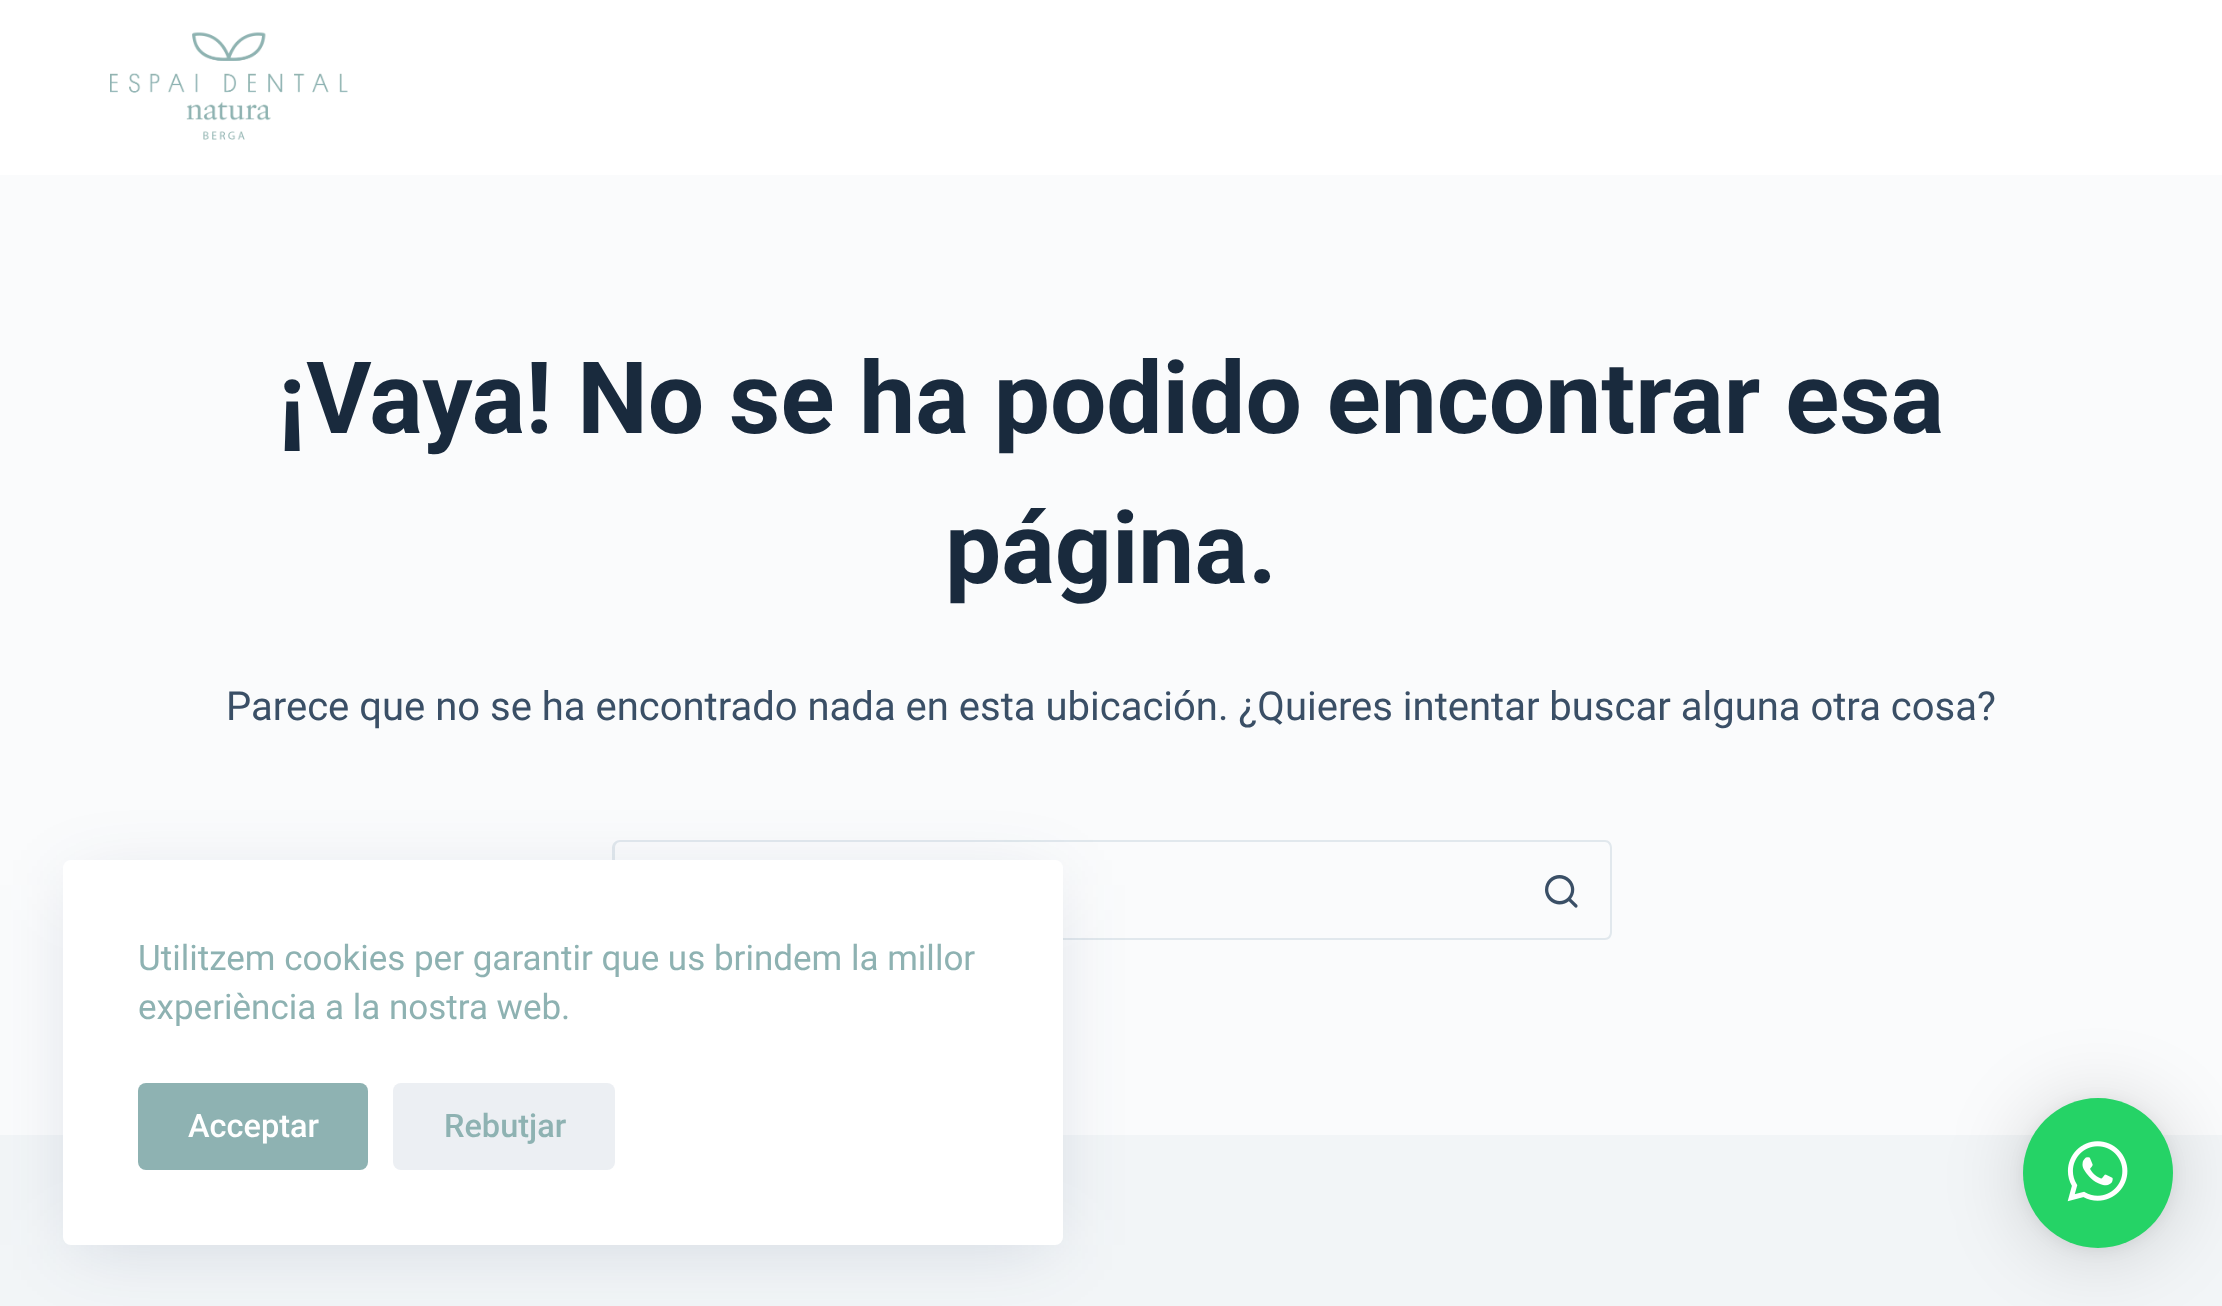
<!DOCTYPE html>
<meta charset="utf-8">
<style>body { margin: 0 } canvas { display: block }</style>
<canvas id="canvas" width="2222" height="1306"></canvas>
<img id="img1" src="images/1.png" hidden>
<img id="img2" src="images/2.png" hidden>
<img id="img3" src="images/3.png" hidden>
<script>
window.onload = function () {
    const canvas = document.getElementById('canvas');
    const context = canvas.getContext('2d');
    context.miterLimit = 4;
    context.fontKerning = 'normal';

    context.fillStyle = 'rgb(250, 251, 252)';
    context.fillRect(0, 0, 2222, 1306);
    context.fillStyle = 'rgb(255, 255, 255)';
    context.fillRect(0, 0, 2222, 175);
    context.drawImage(document.getElementById('img1'), 110, 32, 238, 108);
    context.fillStyle = 'rgb(225, 232, 237)';
    context.beginPath();
    context.moveTo(620, 840);
    context.lineTo(1512, 840);
    context.lineTo(1512, 940);
    context.lineTo(620, 940);
    context.bezierCurveTo(616, 940, 612, 937, 612, 932);
    context.lineTo(612, 848);
    context.bezierCurveTo(612, 843, 616, 840, 620, 840);
    context.closePath();
    context.moveTo(620, 842);
    context.lineTo(1512, 842);
    context.lineTo(1512, 938);
    context.lineTo(620, 938);
    context.bezierCurveTo(617, 938, 615, 935, 615, 932);
    context.lineTo(615, 848);
    context.bezierCurveTo(615, 845, 617, 842, 620, 842);
    context.closePath();
    context.fill('evenodd');
    context.beginPath();
    context.moveTo(1512, 840);
    context.lineTo(1605, 840);
    context.bezierCurveTo(1609, 840, 1612, 843, 1612, 848);
    context.lineTo(1612, 932);
    context.bezierCurveTo(1612, 937, 1609, 940, 1605, 940);
    context.lineTo(1512, 940);
    context.closePath();
    context.moveTo(1512, 842);
    context.lineTo(1605, 842);
    context.bezierCurveTo(1608, 842, 1610, 845, 1610, 848);
    context.lineTo(1610, 932);
    context.bezierCurveTo(1610, 935, 1608, 938, 1605, 938);
    context.lineTo(1512, 938);
    context.closePath();
    context.fill('evenodd');
    context.drawImage(document.getElementById('img2'), 1545, 875, 33, 33);
    context.fillStyle = 'rgb(242, 245, 247)';
    context.fillRect(0, 1135, 2222, 171);
    context.fillStyle = 'rgba(34, 56, 101, 0.15)';
    context.filter = 'blur(37.5px)';
    context.beginPath();
    context.rect(75, 885, 975, 360);
    context.fill();
    context.filter = 'none';
    context.fillStyle = 'rgb(255, 255, 255)';
    context.beginPath();
    context.roundRect(63, 860, 1000, 385, 8);
    context.fill();
    context.fillStyle = 'rgb(142, 178, 178)';
    context.beginPath();
    context.roundRect(138, 1083, 230, 87, 8);
    context.fill();
    context.fillStyle = 'rgb(236, 239, 243)';
    context.beginPath();
    context.roundRect(393, 1083, 222, 87, 8);
    context.fill();
    context.fillStyle = 'rgba(0, 0, 0, 0.16)';
    context.filter = 'blur(40px)';
    context.beginPath();
    context.roundRect(2023, 1103, 150, 150, 75);
    context.fill();
    context.filter = 'none';
    context.fillStyle = 'rgba(0, 0, 0, 0.06)';
    context.filter = 'blur(7.5px)';
    context.beginPath();
    context.roundRect(2023, 1100, 150, 150, 75);
    context.fill();
    context.filter = 'none';
    context.fillStyle = 'rgb(37, 211, 102)';
    context.beginPath();
    context.arc(2098, 1173, 75, 0, 2 * Math.PI);
    context.fill();
    context.drawImage(document.getElementById('img3'), 2067, 1141, 61, 61);
    context.font = 'bold 100px Roboto';
    context.fillStyle = 'rgb(25, 42, 61)';
    context.fillText('¡Vaya! No se ha podido encontrar esa', 278, 433);
    context.fillText('página.', 945, 583);
    context.font = '40px Roboto';
    context.fillStyle = 'rgb(58, 79, 102)';
    context.fillText('Parece que no se ha encontrado nada en esta ubicación. ¿Quieres intentar buscar alguna otra cosa?', 226, 720);
    context.font = '35px Roboto';
    context.fillStyle = 'rgb(142, 178, 178)';
    context.fillText('Utilitzem cookies per garantir que us brindem la millor', 138, 970);
    context.fillText('experiència a la nostra web.', 138, 1019);
    context.font = '500 32.5px Roboto';
    context.fillStyle = 'rgb(255, 255, 255)';
    context.fillText('Acceptar', 188, 1137);
    context.fillStyle = 'rgb(142, 178, 178)';
    context.fillText('Rebutjar', 444, 1137);
};
</script>
